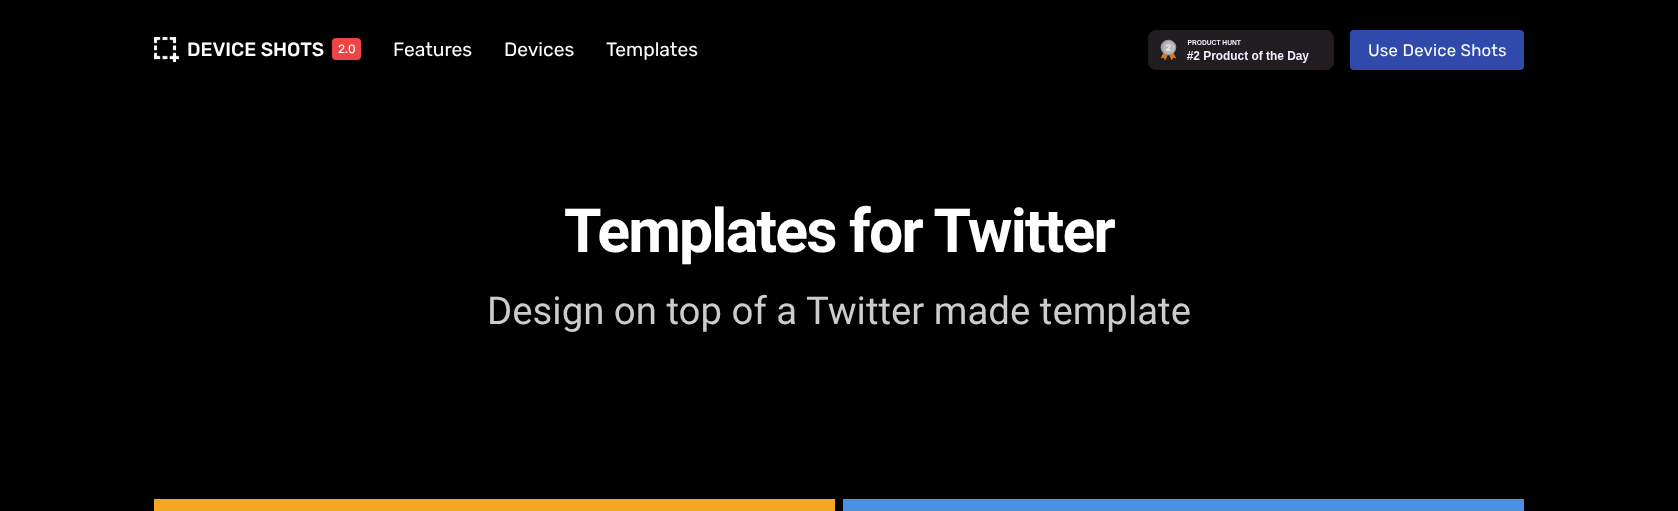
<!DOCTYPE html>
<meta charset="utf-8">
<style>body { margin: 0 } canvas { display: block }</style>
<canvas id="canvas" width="1678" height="511"></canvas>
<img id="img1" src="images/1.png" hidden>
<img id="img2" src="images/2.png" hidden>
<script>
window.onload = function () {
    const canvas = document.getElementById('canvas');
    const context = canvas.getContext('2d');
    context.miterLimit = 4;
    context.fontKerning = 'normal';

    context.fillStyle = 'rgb(0, 0, 0)';
    context.fillRect(0, 0, 1678, 511);
    context.drawImage(document.getElementById('img1'), 154, 37, 25, 25);
    context.fillStyle = 'rgb(239, 68, 68)';
    context.beginPath();
    context.roundRect(332, 38, 29, 22, 4);
    context.fill();
    context.drawImage(document.getElementById('img2'), 1148, 30, 186, 40);
    context.fillStyle = 'rgb(48, 74, 171)';
    context.beginPath();
    context.roundRect(1351, 31, 172, 38, 3);
    context.fill();
    context.strokeStyle = 'rgb(48, 74, 171)';
    context.lineWidth = 2;
    context.stroke();
    context.fillStyle = 'rgb(245, 166, 35)';
    context.fillRect(154, 499, 681, 12);
    context.fillStyle = 'rgb(73, 144, 226)';
    context.fillRect(843, 499, 681, 12);
    context.font = '500 19.25px Rubik';
    context.fillStyle = 'rgb(255, 255, 255)';
    context.fillText('DEVICE SHOTS', 187, 56);
    context.font = '12px Rubik';
    context.fillText('2.0', 338, 53);
    context.font = '19.25px Rubik';
    context.fillText('Features', 393, 56);
    context.fillText('Devices', 504, 56);
    context.fillText('Templates', 606, 56);
    context.letterSpacing = '0.2px';
    context.font = '16.75px Rubik';
    context.fillText('Use Device Shots', 1368, 56);
    context.letterSpacing = '-1.8px';
    context.font = 'bold 60.75px Roboto';
    context.fillText('Templates for Twitter', 564, 252);
    context.letterSpacing = '0px';
    context.font = '38.4px Roboto';
    context.fillStyle = 'rgb(204, 204, 204)';
    context.fillText('Design on top of a Twitter made template', 487, 324);
};
</script>
